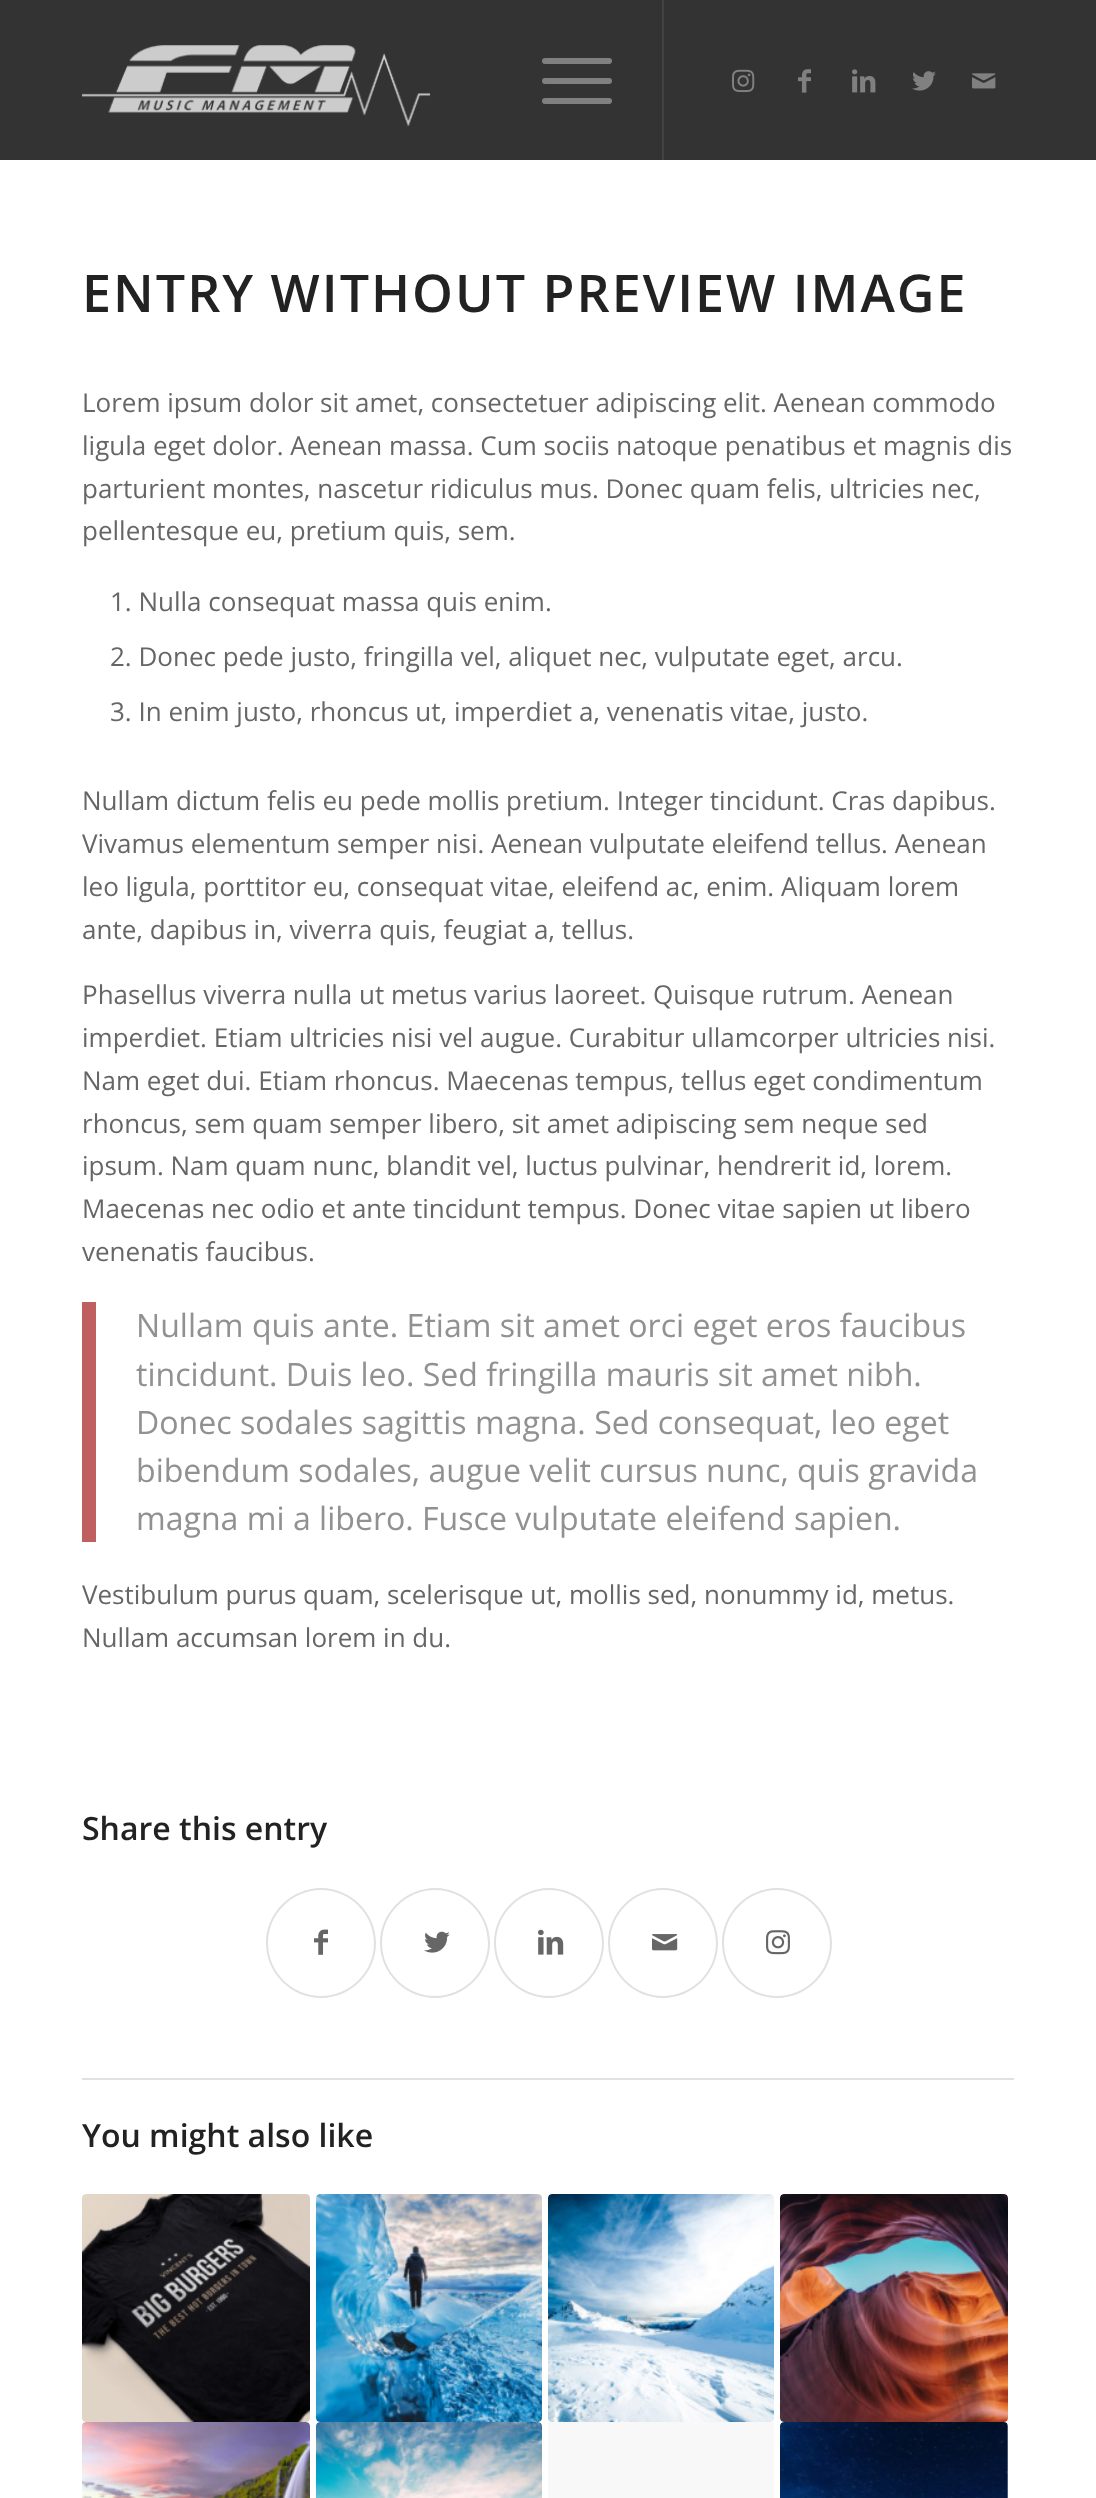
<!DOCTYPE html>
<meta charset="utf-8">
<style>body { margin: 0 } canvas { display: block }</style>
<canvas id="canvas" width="1096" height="2498"></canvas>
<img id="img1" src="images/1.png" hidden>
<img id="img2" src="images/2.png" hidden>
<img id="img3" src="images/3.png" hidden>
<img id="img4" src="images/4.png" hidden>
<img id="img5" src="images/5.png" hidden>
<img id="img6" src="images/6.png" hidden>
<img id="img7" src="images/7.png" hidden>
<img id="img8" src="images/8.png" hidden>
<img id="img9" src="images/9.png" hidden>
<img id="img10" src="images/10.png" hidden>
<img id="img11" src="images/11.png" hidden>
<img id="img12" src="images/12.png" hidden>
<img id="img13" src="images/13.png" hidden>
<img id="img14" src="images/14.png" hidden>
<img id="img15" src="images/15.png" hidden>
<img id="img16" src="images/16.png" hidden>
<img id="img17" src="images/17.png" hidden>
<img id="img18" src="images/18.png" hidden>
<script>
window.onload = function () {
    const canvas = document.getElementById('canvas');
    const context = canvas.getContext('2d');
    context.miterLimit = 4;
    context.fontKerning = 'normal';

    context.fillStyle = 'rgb(255, 255, 255)';
    context.fillRect(0, 0, 1096, 2498);
    context.fillStyle = 'rgb(51, 51, 51)';
    context.fillRect(0, 0, 1096, 160);
    context.drawImage(document.getElementById('img1'), 82, 45, 348, 82);
    context.fillStyle = 'rgb(66, 66, 66)';
    context.fillRect(662, 0, 2, 160);
    context.fillStyle = 'rgb(128, 128, 128)';
    context.beginPath();
    context.roundRect(542, 78, 70, 6, 3);
    context.fill();
    context.beginPath();
    context.roundRect(542, 58, 70, 6, 3);
    context.fill();
    context.beginPath();
    context.roundRect(542, 98, 70, 6, 3);
    context.fill();
    context.drawImage(document.getElementById('img2'), 732, 69, 23, 24);
    context.drawImage(document.getElementById('img3'), 798, 69, 13, 24);
    context.drawImage(document.getElementById('img4'), 852, 69, 24, 24);
    context.drawImage(document.getElementById('img5'), 912, 71, 24, 20);
    context.drawImage(document.getElementById('img6'), 972, 73, 24, 16);
    context.fillStyle = 'rgb(192, 95, 95)';
    context.fillRect(82, 1302, 14, 240);
    context.fillStyle = 'rgb(225, 225, 225)';
    context.beginPath();
    context.moveTo(321, 1888);
    context.bezierCurveTo(351, 1888, 376, 1913, 376, 1943);
    context.bezierCurveTo(376, 1973, 351, 1998, 321, 1998);
    context.bezierCurveTo(291, 1998, 266, 1973, 266, 1943);
    context.bezierCurveTo(266, 1913, 291, 1888, 321, 1888);
    context.closePath();
    context.moveTo(321, 1890);
    context.bezierCurveTo(292, 1890, 268, 1914, 268, 1943);
    context.bezierCurveTo(268, 1972, 292, 1996, 321, 1996);
    context.bezierCurveTo(350, 1996, 374, 1972, 374, 1943);
    context.bezierCurveTo(374, 1914, 350, 1890, 321, 1890);
    context.closePath();
    context.fill('evenodd');
    context.drawImage(document.getElementById('img7'), 314, 1929, 14, 26);
    context.beginPath();
    context.moveTo(435, 1888);
    context.bezierCurveTo(465, 1888, 490, 1913, 490, 1943);
    context.bezierCurveTo(490, 1973, 465, 1998, 435, 1998);
    context.bezierCurveTo(405, 1998, 380, 1973, 380, 1943);
    context.bezierCurveTo(380, 1913, 405, 1888, 435, 1888);
    context.closePath();
    context.moveTo(435, 1890);
    context.bezierCurveTo(406, 1890, 382, 1914, 382, 1943);
    context.bezierCurveTo(382, 1972, 406, 1996, 435, 1996);
    context.bezierCurveTo(464, 1996, 488, 1972, 488, 1943);
    context.bezierCurveTo(488, 1914, 464, 1890, 435, 1890);
    context.closePath();
    context.fill('evenodd');
    context.drawImage(document.getElementById('img8'), 424, 1931, 26, 22);
    context.beginPath();
    context.moveTo(549, 1888);
    context.bezierCurveTo(579, 1888, 604, 1913, 604, 1943);
    context.bezierCurveTo(604, 1973, 579, 1998, 549, 1998);
    context.bezierCurveTo(519, 1998, 494, 1973, 494, 1943);
    context.bezierCurveTo(494, 1913, 519, 1888, 549, 1888);
    context.closePath();
    context.moveTo(549, 1890);
    context.bezierCurveTo(520, 1890, 496, 1914, 496, 1943);
    context.bezierCurveTo(496, 1972, 520, 1996, 549, 1996);
    context.bezierCurveTo(578, 1996, 602, 1972, 602, 1943);
    context.bezierCurveTo(602, 1914, 578, 1890, 549, 1890);
    context.closePath();
    context.fill('evenodd');
    context.drawImage(document.getElementById('img9'), 538, 1929, 26, 26);
    context.beginPath();
    context.moveTo(663, 1888);
    context.bezierCurveTo(693, 1888, 718, 1913, 718, 1943);
    context.bezierCurveTo(718, 1973, 693, 1998, 663, 1998);
    context.bezierCurveTo(633, 1998, 608, 1973, 608, 1943);
    context.bezierCurveTo(608, 1913, 633, 1888, 663, 1888);
    context.closePath();
    context.moveTo(663, 1890);
    context.bezierCurveTo(634, 1890, 610, 1914, 610, 1943);
    context.bezierCurveTo(610, 1972, 634, 1996, 663, 1996);
    context.bezierCurveTo(692, 1996, 716, 1972, 716, 1943);
    context.bezierCurveTo(716, 1914, 692, 1890, 663, 1890);
    context.closePath();
    context.fill('evenodd');
    context.drawImage(document.getElementById('img10'), 652, 1934, 26, 17);
    context.beginPath();
    context.moveTo(777, 1888);
    context.bezierCurveTo(807, 1888, 832, 1913, 832, 1943);
    context.bezierCurveTo(832, 1973, 807, 1998, 777, 1998);
    context.bezierCurveTo(747, 1998, 722, 1973, 722, 1943);
    context.bezierCurveTo(722, 1913, 747, 1888, 777, 1888);
    context.closePath();
    context.moveTo(777, 1890);
    context.bezierCurveTo(748, 1890, 724, 1914, 724, 1943);
    context.bezierCurveTo(724, 1972, 748, 1996, 777, 1996);
    context.bezierCurveTo(806, 1996, 830, 1972, 830, 1943);
    context.bezierCurveTo(830, 1914, 806, 1890, 777, 1890);
    context.closePath();
    context.fill('evenodd');
    context.drawImage(document.getElementById('img11'), 766, 1930, 24, 25);
    context.fillRect(82, 2078, 932, 2);
    context.drawImage(document.getElementById('img12'), 82, 2194, 228, 228);
    context.drawImage(document.getElementById('img13'), 316, 2194, 226, 228);
    context.drawImage(document.getElementById('img14'), 548, 2194, 226, 228);
    context.drawImage(document.getElementById('img15'), 780, 2194, 228, 228);
    context.drawImage(document.getElementById('img16'), 82, 2422, 228, 76);
    context.drawImage(document.getElementById('img17'), 316, 2422, 226, 76);
    context.fillStyle = 'rgb(248, 248, 248)';
    context.fillRect(548, 2422, 226, 76);
    context.drawImage(document.getElementById('img18'), 780, 2422, 228, 76);
    context.letterSpacing = '2px';
    context.font = '600 52px Open Sans';
    context.fillStyle = 'rgb(34, 34, 34)';
    context.fillText('ENTRY WITHOUT PREVIEW IMAGE', 82, 312);
    context.letterSpacing = '0px';
    context.font = '26px Open Sans';
    context.fillStyle = 'rgb(102, 102, 102)';
    context.fillText('Lorem ipsum dolor sit amet, consectetuer adipiscing elit. Aenean commodo', 82, 412);
    context.fillText('ligula eget dolor. Aenean massa. Cum sociis natoque penatibus et magnis dis', 82, 455);
    context.fillText('parturient montes, nascetur ridiculus mus. Donec quam felis, ultricies nec,', 82, 498);
    context.fillText('pellentesque eu, pretium quis, sem.', 82, 540);
    context.fillText('1. Nulla consequat massa quis enim.', 110, 611);
    context.fillText('2. Donec pede justo, fringilla vel, aliquet nec, vulputate eget, arcu.', 110, 666);
    context.fillText('3. In enim justo, rhoncus ut, imperdiet a, venenatis vitae, justo.', 110, 721);
    context.fillText('Nullam dictum felis eu pede mollis pretium. Integer tincidunt. Cras dapibus.', 82, 810);
    context.fillText('Vivamus elementum semper nisi. Aenean vulputate eleifend tellus. Aenean', 82, 853);
    context.fillText('leo ligula, porttitor eu, consequat vitae, eleifend ac, enim. Aliquam lorem', 82, 896);
    context.fillText('ante, dapibus in, viverra quis, feugiat a, tellus.', 82, 939);
    context.fillText('Phasellus viverra nulla ut metus varius laoreet. Quisque rutrum. Aenean', 82, 1004);
    context.fillText('imperdiet. Etiam ultricies nisi vel augue. Curabitur ullamcorper ultricies nisi.', 82, 1047);
    context.fillText('Nam eget dui. Etiam rhoncus. Maecenas tempus, tellus eget condimentum', 82, 1090);
    context.fillText('rhoncus, sem quam semper libero, sit amet adipiscing sem neque sed', 82, 1133);
    context.fillText('ipsum. Nam quam nunc, blandit vel, luctus pulvinar, hendrerit id, lorem.', 82, 1175);
    context.fillText('Maecenas nec odio et ante tincidunt tempus. Donec vitae sapien ut libero', 82, 1218);
    context.fillText('venenatis faucibus.', 82, 1261);
    context.font = '32.1px Open Sans';
    context.fillStyle = 'rgb(145, 145, 145)';
    context.fillText('Nullam quis ante. Etiam sit amet orci eget eros faucibus', 136, 1337);
    context.fillText('tincidunt. Duis leo. Sed fringilla mauris sit amet nibh.', 136, 1386);
    context.fillText('Donec sodales sagittis magna. Sed consequat, leo eget', 136, 1434);
    context.fillText('bibendum sodales, augue velit cursus nunc, quis gravida', 136, 1482);
    context.fillText('magna mi a libero. Fusce vulputate eleifend sapien.', 136, 1530);
    context.font = '26px Open Sans';
    context.fillStyle = 'rgb(102, 102, 102)';
    context.fillText('Vestibulum purus quam, scelerisque ut, mollis sed, nonummy id, metus.', 82, 1604);
    context.fillText('Nullam accumsan lorem in du.', 82, 1647);
    context.font = '600 32px Open Sans';
    context.fillStyle = 'rgb(34, 34, 34)';
    context.fillText('Share this entry', 82, 1840);
    context.fillText('You might also like', 82, 2147);
};
</script>
